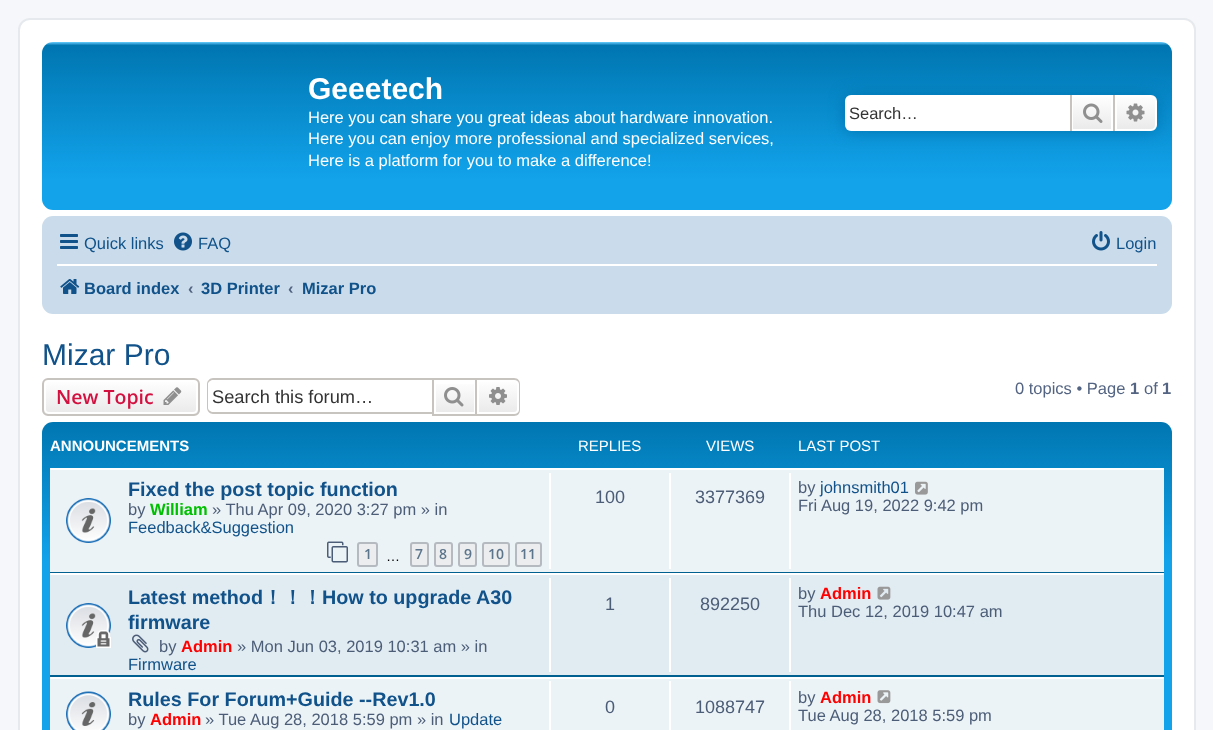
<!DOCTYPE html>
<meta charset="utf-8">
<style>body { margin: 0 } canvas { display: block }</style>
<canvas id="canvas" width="1213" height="730"></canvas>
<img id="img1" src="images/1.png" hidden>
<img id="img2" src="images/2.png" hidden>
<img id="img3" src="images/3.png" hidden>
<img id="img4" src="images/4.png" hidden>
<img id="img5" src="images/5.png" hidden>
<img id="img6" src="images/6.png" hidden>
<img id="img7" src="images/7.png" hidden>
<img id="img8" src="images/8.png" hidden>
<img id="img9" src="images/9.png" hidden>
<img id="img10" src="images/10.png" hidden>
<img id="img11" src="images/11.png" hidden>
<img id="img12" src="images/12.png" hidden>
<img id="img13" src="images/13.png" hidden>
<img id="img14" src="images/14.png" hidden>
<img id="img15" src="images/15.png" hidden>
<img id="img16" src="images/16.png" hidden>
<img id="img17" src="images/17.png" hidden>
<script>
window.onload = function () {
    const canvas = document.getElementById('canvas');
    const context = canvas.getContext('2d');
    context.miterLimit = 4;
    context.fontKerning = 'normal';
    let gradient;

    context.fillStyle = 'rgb(245, 247, 250)';
    context.fillRect(0, 0, 1213, 730);
    context.fillStyle = 'rgb(255, 255, 255)';
    context.beginPath();
    context.roundRect(19, 19, 1176, 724, 11);
    context.fill();
    context.strokeStyle = 'rgb(230, 233, 237)';
    context.lineWidth = 2;
    context.stroke();
    gradient = context.createLinearGradient(607, 42, 607, 210);
    gradient.addColorStop(0, 'rgb(106, 206, 255)');
    gradient.addColorStop(0.02, 'rgb(0, 118, 177)');
    gradient.addColorStop(0.82, 'rgb(18, 163, 235)');
    gradient.addColorStop(1, 'rgb(18, 163, 235)');
    context.fillStyle = gradient;
    context.beginPath();
    context.roundRect(42, 42, 1130, 168, 11);
    context.fill();
    context.fillStyle = 'rgb(0, 117, 176)';
    context.filter = 'blur(7.5px)';
    context.beginPath();
    context.roundRect(845, 95, 312, 36, 6);
    context.fill();
    context.filter = 'none';
    context.fillStyle = 'rgb(255, 255, 255)';
    context.beginPath();
    context.roundRect(845, 95, 225, 36, [6, 0, 0, 6]);
    context.fill();
    gradient = context.createLinearGradient(1092, 95, 1092, 131);
    gradient.addColorStop(0, 'rgb(255, 255, 255)');
    gradient.addColorStop(1, 'rgb(233, 233, 233)');
    context.fillStyle = gradient;
    context.fillRect(1073, 97, 38, 32);
    context.strokeStyle = 'rgb(255, 255, 255)';
    context.strokeRect(1072, 96, 40, 34);
    context.fillStyle = 'rgb(199, 195, 191)';
    context.fillRect(1113, 95, 2, 36);
    context.fillRect(1070, 95, 2, 36);
    context.drawImage(document.getElementById('img1'), 1083, 103, 20, 20);
    gradient = context.createLinearGradient(1136, 95, 1136, 131);
    gradient.addColorStop(0, 'rgb(255, 255, 255)');
    gradient.addColorStop(1, 'rgb(233, 233, 233)');
    context.fillStyle = gradient;
    context.beginPath();
    context.roundRect(1116, 96, 40, 34, [0, 5, 5, 0]);
    context.fill();
    context.stroke();
    context.drawImage(document.getElementById('img2'), 1126, 103, 19, 19);
    context.fillStyle = 'rgb(202, 220, 235)';
    context.beginPath();
    context.roundRect(42, 216, 1130, 98, 11);
    context.fill();
    context.drawImage(document.getElementById('img3'), 60, 234, 18, 15);
    context.drawImage(document.getElementById('img4'), 174, 232, 18, 19);
    context.drawImage(document.getElementById('img5'), 1092, 231, 18, 20);
    context.fillStyle = 'rgb(255, 255, 255)';
    context.fillRect(57, 264, 1100, 2);
    context.drawImage(document.getElementById('img6'), 60, 279, 20, 15);
    context.save();
    context.beginPath();
    context.roundRect(42, 378, 158, 38, 6);
    context.clip();
    gradient = context.createLinearGradient(121, 380, 121, 414);
    gradient.addColorStop(0, 'rgb(255, 255, 255)');
    gradient.addColorStop(1, 'rgb(233, 233, 233)');
    context.fillStyle = gradient;
    context.fillRect(42, 380, 158, 34);
    context.restore();
    context.beginPath();
    context.roundRect(45, 381, 152, 32, 4);
    context.stroke();
    context.beginPath();
    context.roundRect(43, 379, 156, 36, 5);
    context.strokeStyle = 'rgb(199, 195, 191)';
    context.stroke();
    context.drawImage(document.getElementById('img7'), 163, 387, 19, 18);
    context.fillStyle = 'rgb(199, 195, 191)';
    context.beginPath();
    context.moveTo(213, 378);
    context.lineTo(432, 378);
    context.lineTo(432, 414);
    context.lineTo(213, 414);
    context.bezierCurveTo(210, 414, 207, 411, 207, 408);
    context.lineTo(207, 384);
    context.bezierCurveTo(207, 381, 210, 378, 213, 378);
    context.closePath();
    context.moveTo(213, 380);
    context.lineTo(432, 380);
    context.lineTo(432, 412);
    context.lineTo(213, 412);
    context.bezierCurveTo(211, 412, 208, 410, 208, 408);
    context.lineTo(208, 384);
    context.bezierCurveTo(208, 382, 211, 380, 213, 380);
    context.closePath();
    context.fill('evenodd');
    gradient = context.createLinearGradient(455, 380, 455, 414);
    gradient.addColorStop(0, 'rgb(255, 255, 255)');
    gradient.addColorStop(1, 'rgb(233, 233, 233)');
    context.fillStyle = gradient;
    context.fillRect(436, 384, 38, 28);
    context.strokeRect(433, 379, 43, 36);
    context.drawImage(document.getElementById('img8'), 444, 387, 20, 20);
    gradient = context.createLinearGradient(498, 380, 498, 414);
    gradient.addColorStop(0, 'rgb(255, 255, 255)');
    gradient.addColorStop(1, 'rgb(233, 233, 233)');
    context.fillStyle = gradient;
    context.beginPath();
    context.roundRect(478, 381, 40, 32, [0, 4, 4, 0]);
    context.fill();
    context.strokeStyle = 'rgb(255, 255, 255)';
    context.stroke();
    context.fillStyle = 'rgb(199, 195, 191)';
    context.beginPath();
    context.moveTo(477, 378);
    context.lineTo(514, 378);
    context.bezierCurveTo(518, 378, 520, 381, 520, 384);
    context.lineTo(520, 410);
    context.bezierCurveTo(520, 413, 518, 416, 514, 416);
    context.lineTo(477, 416);
    context.closePath();
    context.moveTo(477, 380);
    context.lineTo(514, 380);
    context.bezierCurveTo(517, 380, 519, 382, 519, 384);
    context.lineTo(519, 410);
    context.bezierCurveTo(519, 412, 517, 414, 514, 414);
    context.lineTo(477, 414);
    context.closePath();
    context.fill('evenodd');
    context.drawImage(document.getElementById('img9'), 489, 387, 18, 18);
    gradient = context.createLinearGradient(607, 421, 607, 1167);
    gradient.addColorStop(0, 'rgb(106, 206, 255)');
    gradient.addColorStop(0, 'rgb(0, 118, 177)');
    gradient.addColorStop(0.19, 'rgb(18, 163, 235)');
    gradient.addColorStop(1, 'rgb(18, 163, 235)');
    context.fillStyle = gradient;
    context.beginPath();
    context.roundRect(42, 422, 1130, 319, 11);
    context.fill();
    context.fillStyle = 'rgb(236, 243, 247)';
    context.fillRect(50, 470, 1114, 102);
    context.fillStyle = 'rgb(255, 255, 255)';
    context.fillRect(50, 468, 1114, 2);
    context.fillStyle = 'rgb(0, 96, 143)';
    context.fillRect(50, 572, 1114, 1);
    context.drawImage(document.getElementById('img10'), 66, 498, 45, 45);
    context.drawImage(document.getElementById('img11'), 327, 541, 21, 22);
    context.fillStyle = 'rgb(236, 237, 238)';
    context.beginPath();
    context.roundRect(358, 543, 19, 23, 2);
    context.fill();
    context.strokeStyle = 'rgb(180, 186, 192)';
    context.stroke();
    context.beginPath();
    context.roundRect(411, 543, 17, 23, 2);
    context.fill();
    context.stroke();
    context.beginPath();
    context.roundRect(435, 543, 17, 23, 2);
    context.fill();
    context.stroke();
    context.beginPath();
    context.roundRect(459, 543, 17, 23, 2);
    context.fill();
    context.stroke();
    context.beginPath();
    context.roundRect(483, 543, 26, 23, 2);
    context.fill();
    context.stroke();
    context.beginPath();
    context.roundRect(516, 543, 25, 23, 2);
    context.fill();
    context.stroke();
    context.fillStyle = 'rgb(255, 255, 255)';
    context.fillRect(549, 473, 2, 96);
    context.fillRect(669, 473, 2, 96);
    context.fillRect(789, 473, 2, 96);
    context.drawImage(document.getElementById('img12'), 915, 481, 13, 14);
    context.fillStyle = 'rgb(225, 235, 242)';
    context.fillRect(50, 575, 1114, 100);
    context.fillStyle = 'rgb(255, 255, 255)';
    context.fillRect(50, 573, 1114, 2);
    context.fillStyle = 'rgb(0, 96, 143)';
    context.fillRect(50, 675, 1114, 2);
    context.drawImage(document.getElementById('img13'), 66, 603, 45, 45);
    context.drawImage(document.getElementById('img14'), 132, 634, 17, 19);
    context.fillStyle = 'rgb(255, 255, 255)';
    context.fillRect(549, 578, 2, 94);
    context.fillRect(669, 578, 2, 94);
    context.fillRect(789, 578, 2, 94);
    context.drawImage(document.getElementById('img15'), 877, 586, 14, 14);
    context.fillStyle = 'rgb(236, 243, 247)';
    context.fillRect(50, 679, 1114, 51);
    context.fillStyle = 'rgb(255, 255, 255)';
    context.fillRect(50, 677, 1114, 2);
    context.drawImage(document.getElementById('img16'), 66, 691, 45, 39);
    context.fillRect(549, 681, 2, 49);
    context.fillRect(669, 681, 2, 49);
    context.fillRect(789, 681, 2, 49);
    context.drawImage(document.getElementById('img17'), 877, 690, 14, 14);
    context.font = 'bold 30px Liberation Sans';
    context.fillText('Geeetech', 308, 99);
    context.font = '16.5px Liberation Sans';
    context.fillText('Here you can share you great ideas about hardware innovation.', 308, 123);
    context.fillText('Here you can enjoy more professional and specialized services,', 308, 144);
    context.fillText('Here is a platform for you to make a difference!', 308, 166);
    context.fillStyle = 'rgb(51, 51, 51)';
    context.fillText('Search…', 849, 119);
    context.fillStyle = 'rgb(16, 82, 137)';
    context.fillText('Quick links', 84, 249);
    context.fillText('FAQ', 198, 249);
    context.fillText('Login', 1116, 249);
    context.font = 'bold 16.5px Liberation Sans';
    context.fillText('Board index', 84, 294);
    context.fillStyle = 'rgb(83, 100, 130)';
    context.fillText('‹', 188, 294);
    context.fillStyle = 'rgb(16, 82, 137)';
    context.fillText('3D Printer', 201, 294);
    context.fillStyle = 'rgb(83, 100, 130)';
    context.fillText('‹', 288, 294);
    context.fillStyle = 'rgb(16, 82, 137)';
    context.fillText('Mizar Pro', 302, 294);
    context.font = '30px Liberation Sans';
    context.fillText('Mizar Pro', 42, 365);
    context.font = '600 19.5px Open Sans';
    context.fillStyle = 'rgb(211, 17, 65)';
    context.fillText('New Topic', 56, 404);
    context.font = '18.25px Liberation Sans';
    context.fillStyle = 'rgb(51, 51, 51)';
    context.fillText('Search this forum…', 212, 403);
    context.font = '16.5px Liberation Sans';
    context.fillStyle = 'rgb(83, 100, 130)';
    context.fillText('0 topics • Page', 1015, 394);
    context.font = 'bold 16.5px Liberation Sans';
    context.fillText('1', 1130, 394);
    context.font = '16.5px Liberation Sans';
    context.fillText('of', 1144, 394);
    context.font = 'bold 16.5px Liberation Sans';
    context.fillText('1', 1162, 394);
    context.font = 'bold 15px Liberation Sans';
    context.fillStyle = 'rgb(255, 255, 255)';
    context.fillText('ANNOUNCEMENTS', 50, 451);
    context.font = '15px Liberation Sans';
    context.fillText('REPLIES', 578, 451);
    context.fillText('VIEWS', 706, 451);
    context.fillText('LAST POST', 798, 451);
    context.font = 'bold 19.75px Liberation Sans';
    context.fillStyle = 'rgb(16, 82, 137)';
    context.fillText('Fixed the post topic function', 128, 496);
    context.font = '16.5px Liberation Sans';
    context.fillStyle = 'rgb(76, 93, 119)';
    context.fillText('by', 128, 515);
    context.font = 'bold 16.5px Liberation Sans';
    context.fillStyle = 'rgb(0, 191, 0)';
    context.fillText('William', 150, 515);
    context.font = '16.5px Liberation Sans';
    context.fillStyle = 'rgb(76, 93, 119)';
    context.fillText('» Thu Apr 09, 2020 3:27 pm » in', 212, 515);
    context.fillStyle = 'rgb(16, 82, 137)';
    context.fillText('Feedback&Suggestion', 128, 533);
    context.font = '600 14px Open Sans';
    context.fillStyle = 'rgb(92, 117, 140)';
    context.fillText('1', 364, 559);
    context.fillText('7', 415, 559);
    context.fillText('8', 439, 559);
    context.fillText('9', 464, 559);
    context.fillText('10', 488, 559);
    context.fillText('11', 520, 559);
    context.font = '14px Liberation Sans';
    context.fillStyle = 'rgb(0, 0, 0)';
    context.fillText('…', 386, 561);
    context.font = '18px Liberation Sans';
    context.fillStyle = 'rgb(76, 93, 119)';
    context.fillText('100', 595, 503);
    context.fillText('3377369', 695, 503);
    context.font = '16.5px Liberation Sans';
    context.fillText('by', 798, 493);
    context.fillStyle = 'rgb(16, 82, 137)';
    context.fillText('johnsmith01', 820, 493);
    context.fillStyle = 'rgb(76, 93, 119)';
    context.fillText('Fri Aug 19, 2022 9:42 pm', 798, 511);
    context.font = 'bold 19.75px Liberation Sans';
    context.fillStyle = 'rgb(16, 82, 137)';
    context.fillText('Latest method', 128, 604);
    context.font = 'bold 19.75px WenQuanYi Zen Hei';
    context.fillText('！！！', 263, 604);
    context.font = 'bold 19.75px Liberation Sans';
    context.fillText('How to upgrade A30', 322, 604);
    context.fillText('firmware', 128, 629);
    context.font = '16.5px Liberation Sans';
    context.fillStyle = 'rgb(76, 93, 119)';
    context.fillText('by', 159, 652);
    context.font = 'bold 16.5px Liberation Sans';
    context.fillStyle = 'rgb(255, 0, 0)';
    context.fillText('Admin', 181, 652);
    context.font = '16.5px Liberation Sans';
    context.fillStyle = 'rgb(76, 93, 119)';
    context.fillText('» Mon Jun 03, 2019 10:31 am » in', 237, 652);
    context.fillStyle = 'rgb(16, 82, 137)';
    context.fillText('Firmware', 128, 670);
    context.font = '18px Liberation Sans';
    context.fillStyle = 'rgb(76, 93, 119)';
    context.fillText('1', 605, 610);
    context.fillText('892250', 700, 610);
    context.font = '16.5px Liberation Sans';
    context.fillText('by', 798, 599);
    context.font = 'bold 16.5px Liberation Sans';
    context.fillStyle = 'rgb(255, 0, 0)';
    context.fillText('Admin', 820, 599);
    context.font = '16.5px Liberation Sans';
    context.fillStyle = 'rgb(76, 93, 119)';
    context.fillText('Thu Dec 12, 2019 10:47 am', 798, 617);
    context.font = 'bold 19.75px Liberation Sans';
    context.fillStyle = 'rgb(16, 82, 137)';
    context.fillText('Rules For Forum+Guide --Rev1.0', 128, 706);
    context.font = '16.5px Liberation Sans';
    context.fillStyle = 'rgb(76, 93, 119)';
    context.fillText('by', 128, 725);
    context.font = 'bold 16.5px Liberation Sans';
    context.fillStyle = 'rgb(255, 0, 0)';
    context.fillText('Admin', 150, 725);
    context.font = '16.5px Liberation Sans';
    context.fillStyle = 'rgb(76, 93, 119)';
    context.fillText('» Tue Aug 28, 2018 5:59 pm » in', 205, 725);
    context.fillStyle = 'rgb(16, 82, 137)';
    context.fillText('Update', 449, 725);
    context.font = '18px Liberation Sans';
    context.fillStyle = 'rgb(76, 93, 119)';
    context.fillText('0', 605, 713);
    context.fillText('1088747', 695, 713);
    context.font = '16.5px Liberation Sans';
    context.fillText('by', 798, 703);
    context.font = 'bold 16.5px Liberation Sans';
    context.fillStyle = 'rgb(255, 0, 0)';
    context.fillText('Admin', 820, 703);
    context.font = '16.5px Liberation Sans';
    context.fillStyle = 'rgb(76, 93, 119)';
    context.fillText('Tue Aug 28, 2018 5:59 pm', 798, 721);
};
</script>
